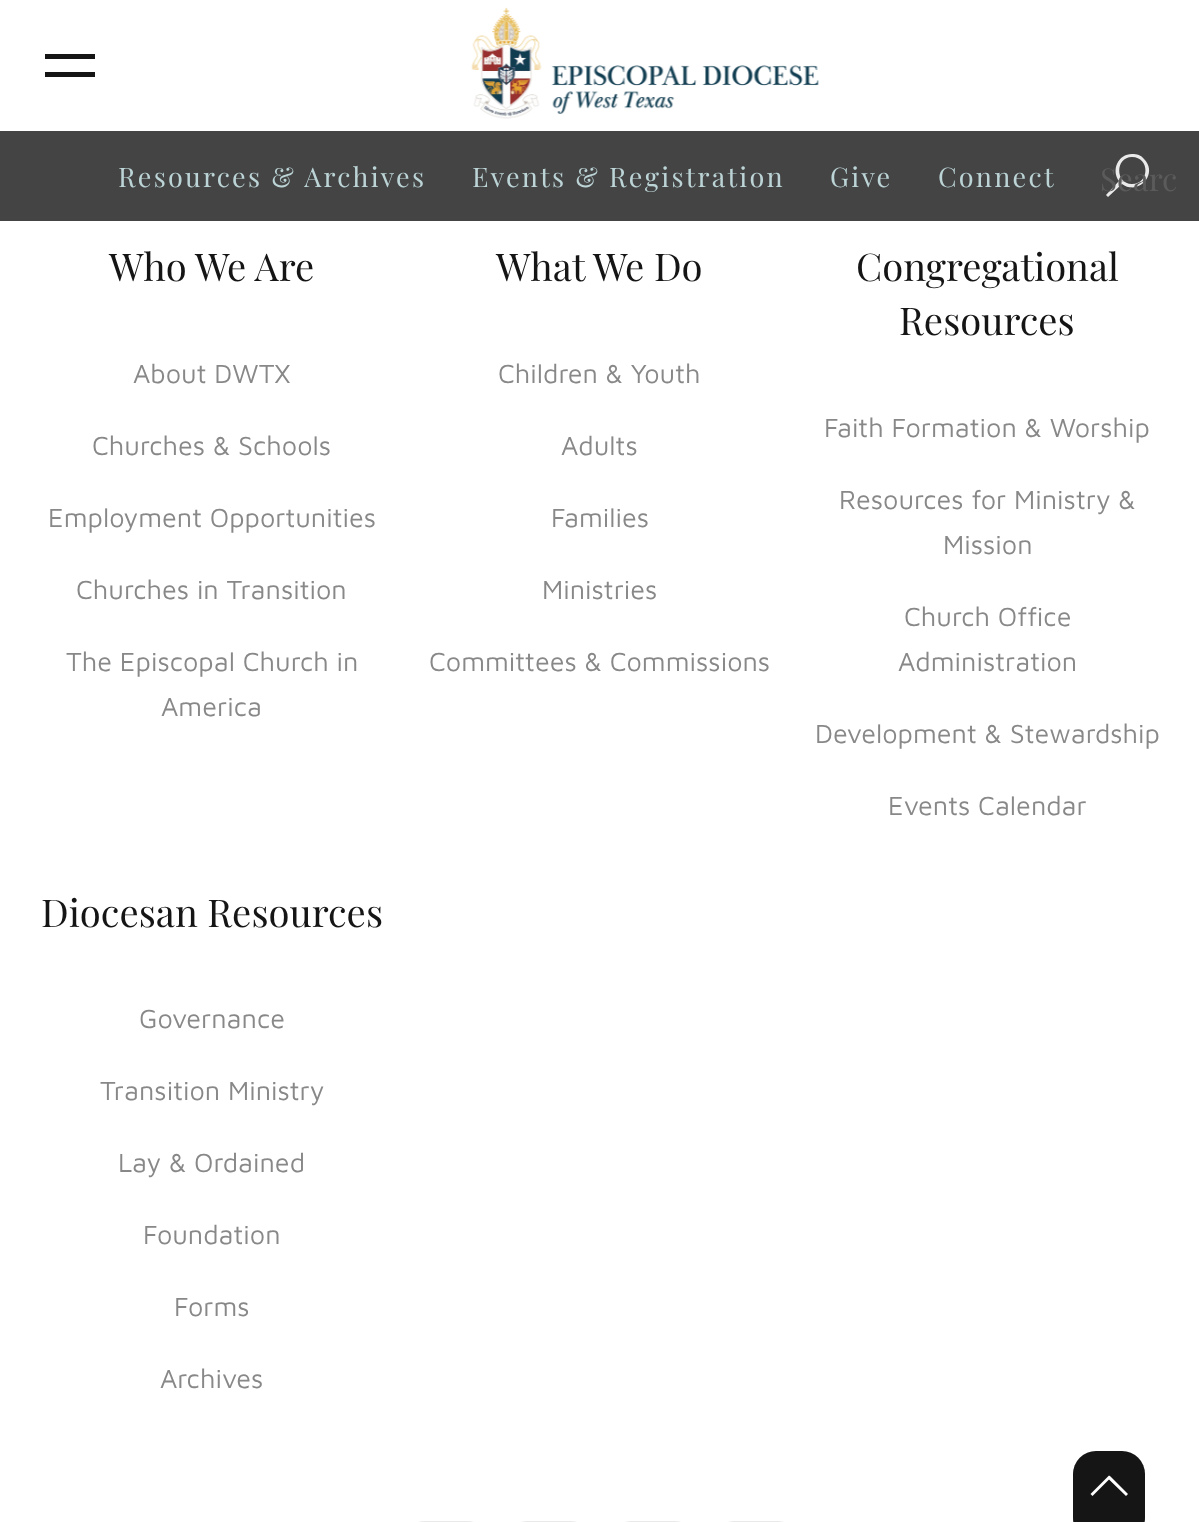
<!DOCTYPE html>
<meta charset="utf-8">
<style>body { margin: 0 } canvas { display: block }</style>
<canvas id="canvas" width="1199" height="1522"></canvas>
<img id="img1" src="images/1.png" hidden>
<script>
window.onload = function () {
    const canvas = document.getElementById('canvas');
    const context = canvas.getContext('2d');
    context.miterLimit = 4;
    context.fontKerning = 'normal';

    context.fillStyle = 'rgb(255, 255, 255)';
    context.fillRect(0, 0, 1199, 1522);
    context.fillStyle = 'rgb(21, 21, 21)';
    context.fillRect(45, 54, 50, 5);
    context.fillRect(45, 72, 50, 5);
    context.drawImage(document.getElementById('img1'), 471, 7, 348, 112);
    context.fillStyle = 'rgb(68, 68, 68)';
    context.fillRect(0, 131, 1199, 90);
    context.fillStyle = 'rgb(234, 234, 234)';
    context.beginPath();
    context.moveTo(1132, 154);
    context.bezierCurveTo(1118, 154, 1111, 170, 1119, 181);
    context.lineTo(1106, 195);
    context.lineTo(1108, 197);
    context.lineTo(1122, 184);
    context.bezierCurveTo(1138, 196, 1159, 174, 1144, 159);
    context.bezierCurveTo(1141, 155, 1137, 154, 1132, 154);
    context.closePath();
    context.moveTo(1132, 157);
    context.bezierCurveTo(1150, 157, 1150, 184, 1132, 184);
    context.bezierCurveTo(1115, 184, 1115, 157, 1132, 157);
    context.closePath();
    context.fill();
    context.beginPath();
    context.roundRect(402, 1522, 88, 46, 44);
    context.strokeStyle = 'rgb(233, 233, 233)';
    context.lineWidth = 2;
    context.stroke();
    context.beginPath();
    context.roundRect(505, 1522, 88, 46, 44);
    context.stroke();
    context.beginPath();
    context.roundRect(609, 1522, 88, 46, 44);
    context.stroke();
    context.beginPath();
    context.roundRect(712, 1522, 88, 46, 44);
    context.stroke();
    context.fillStyle = 'rgb(21, 21, 21)';
    context.beginPath();
    context.roundRect(1073, 1451, 72, 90, 23);
    context.fill();
    context.fillStyle = 'rgb(255, 255, 255)';
    context.beginPath();
    context.moveTo(1109, 1475.5);
    context.lineTo(1090.5, 1494);
    context.lineTo(1092.5, 1496);
    context.lineTo(1109, 1479.5);
    context.lineTo(1126, 1496);
    context.lineTo(1128, 1494);
    context.lineTo(1110.5, 1476.5);
    context.closePath();
    context.fill();
    context.letterSpacing = '2.25px';
    context.font = '27px Playfair Display';
    context.fillStyle = 'rgb(188, 212, 214)';
    context.fillText('Resources & Archives', 118, 187);
    context.fillText('Events & Registration', 472, 187);
    context.fillText('Give', 830, 187);
    context.fillText('Connect', 938, 187);
    context.letterSpacing = '0px';
    context.font = '31.5px Playfair Display';
    context.fillStyle = 'rgb(91, 91, 91)';
    context.fillText('Searc', 1100, 191);
    context.font = '38.25px Playfair Display';
    context.fillStyle = 'rgb(21, 21, 21)';
    context.fillText('Who We Are', 109, 281);
    context.font = '27px Maven Pro';
    context.fillStyle = 'rgb(136, 136, 136)';
    context.fillText('About DWTX', 133, 383);
    context.fillText('Churches & Schools', 92, 455);
    context.fillText('Employment Opportunities', 48, 527);
    context.fillText('Churches in Transition', 76, 599);
    context.fillText('The Episcopal Church in', 66, 671);
    context.fillText('America', 161, 716);
    context.font = '38.25px Playfair Display';
    context.fillStyle = 'rgb(21, 21, 21)';
    context.fillText('What We Do', 496, 281);
    context.font = '27px Maven Pro';
    context.fillStyle = 'rgb(136, 136, 136)';
    context.fillText('Children & Youth', 498, 383);
    context.fillText('Adults', 561, 455);
    context.fillText('Families', 551, 527);
    context.fillText('Ministries', 542, 599);
    context.fillText('Committees & Commissions', 429, 671);
    context.font = '38.25px Playfair Display';
    context.fillStyle = 'rgb(21, 21, 21)';
    context.fillText('Congregational', 856, 281);
    context.fillText('Resources', 899, 335);
    context.font = '27px Maven Pro';
    context.fillStyle = 'rgb(136, 136, 136)';
    context.fillText('Faith Formation & Worship', 824, 437);
    context.fillText('Resources for Ministry &', 839, 509);
    context.fillText('Mission', 943, 554);
    context.fillText('Church Office', 904, 626);
    context.fillText('Administration', 898, 671);
    context.fillText('Development & Stewardship', 815, 743);
    context.fillText('Events Calendar', 888, 815);
    context.font = '38.25px Playfair Display';
    context.fillStyle = 'rgb(21, 21, 21)';
    context.fillText('Diocesan Resources', 41, 927);
    context.font = '27px Maven Pro';
    context.fillStyle = 'rgb(136, 136, 136)';
    context.fillText('Governance', 139, 1028);
    context.fillText('Transition Ministry', 100, 1100);
    context.fillText('Lay & Ordained', 118, 1172);
    context.fillText('Foundation', 143, 1244);
    context.fillText('Forms', 174, 1316);
    context.fillText('Archives', 160, 1388);
};
</script>
